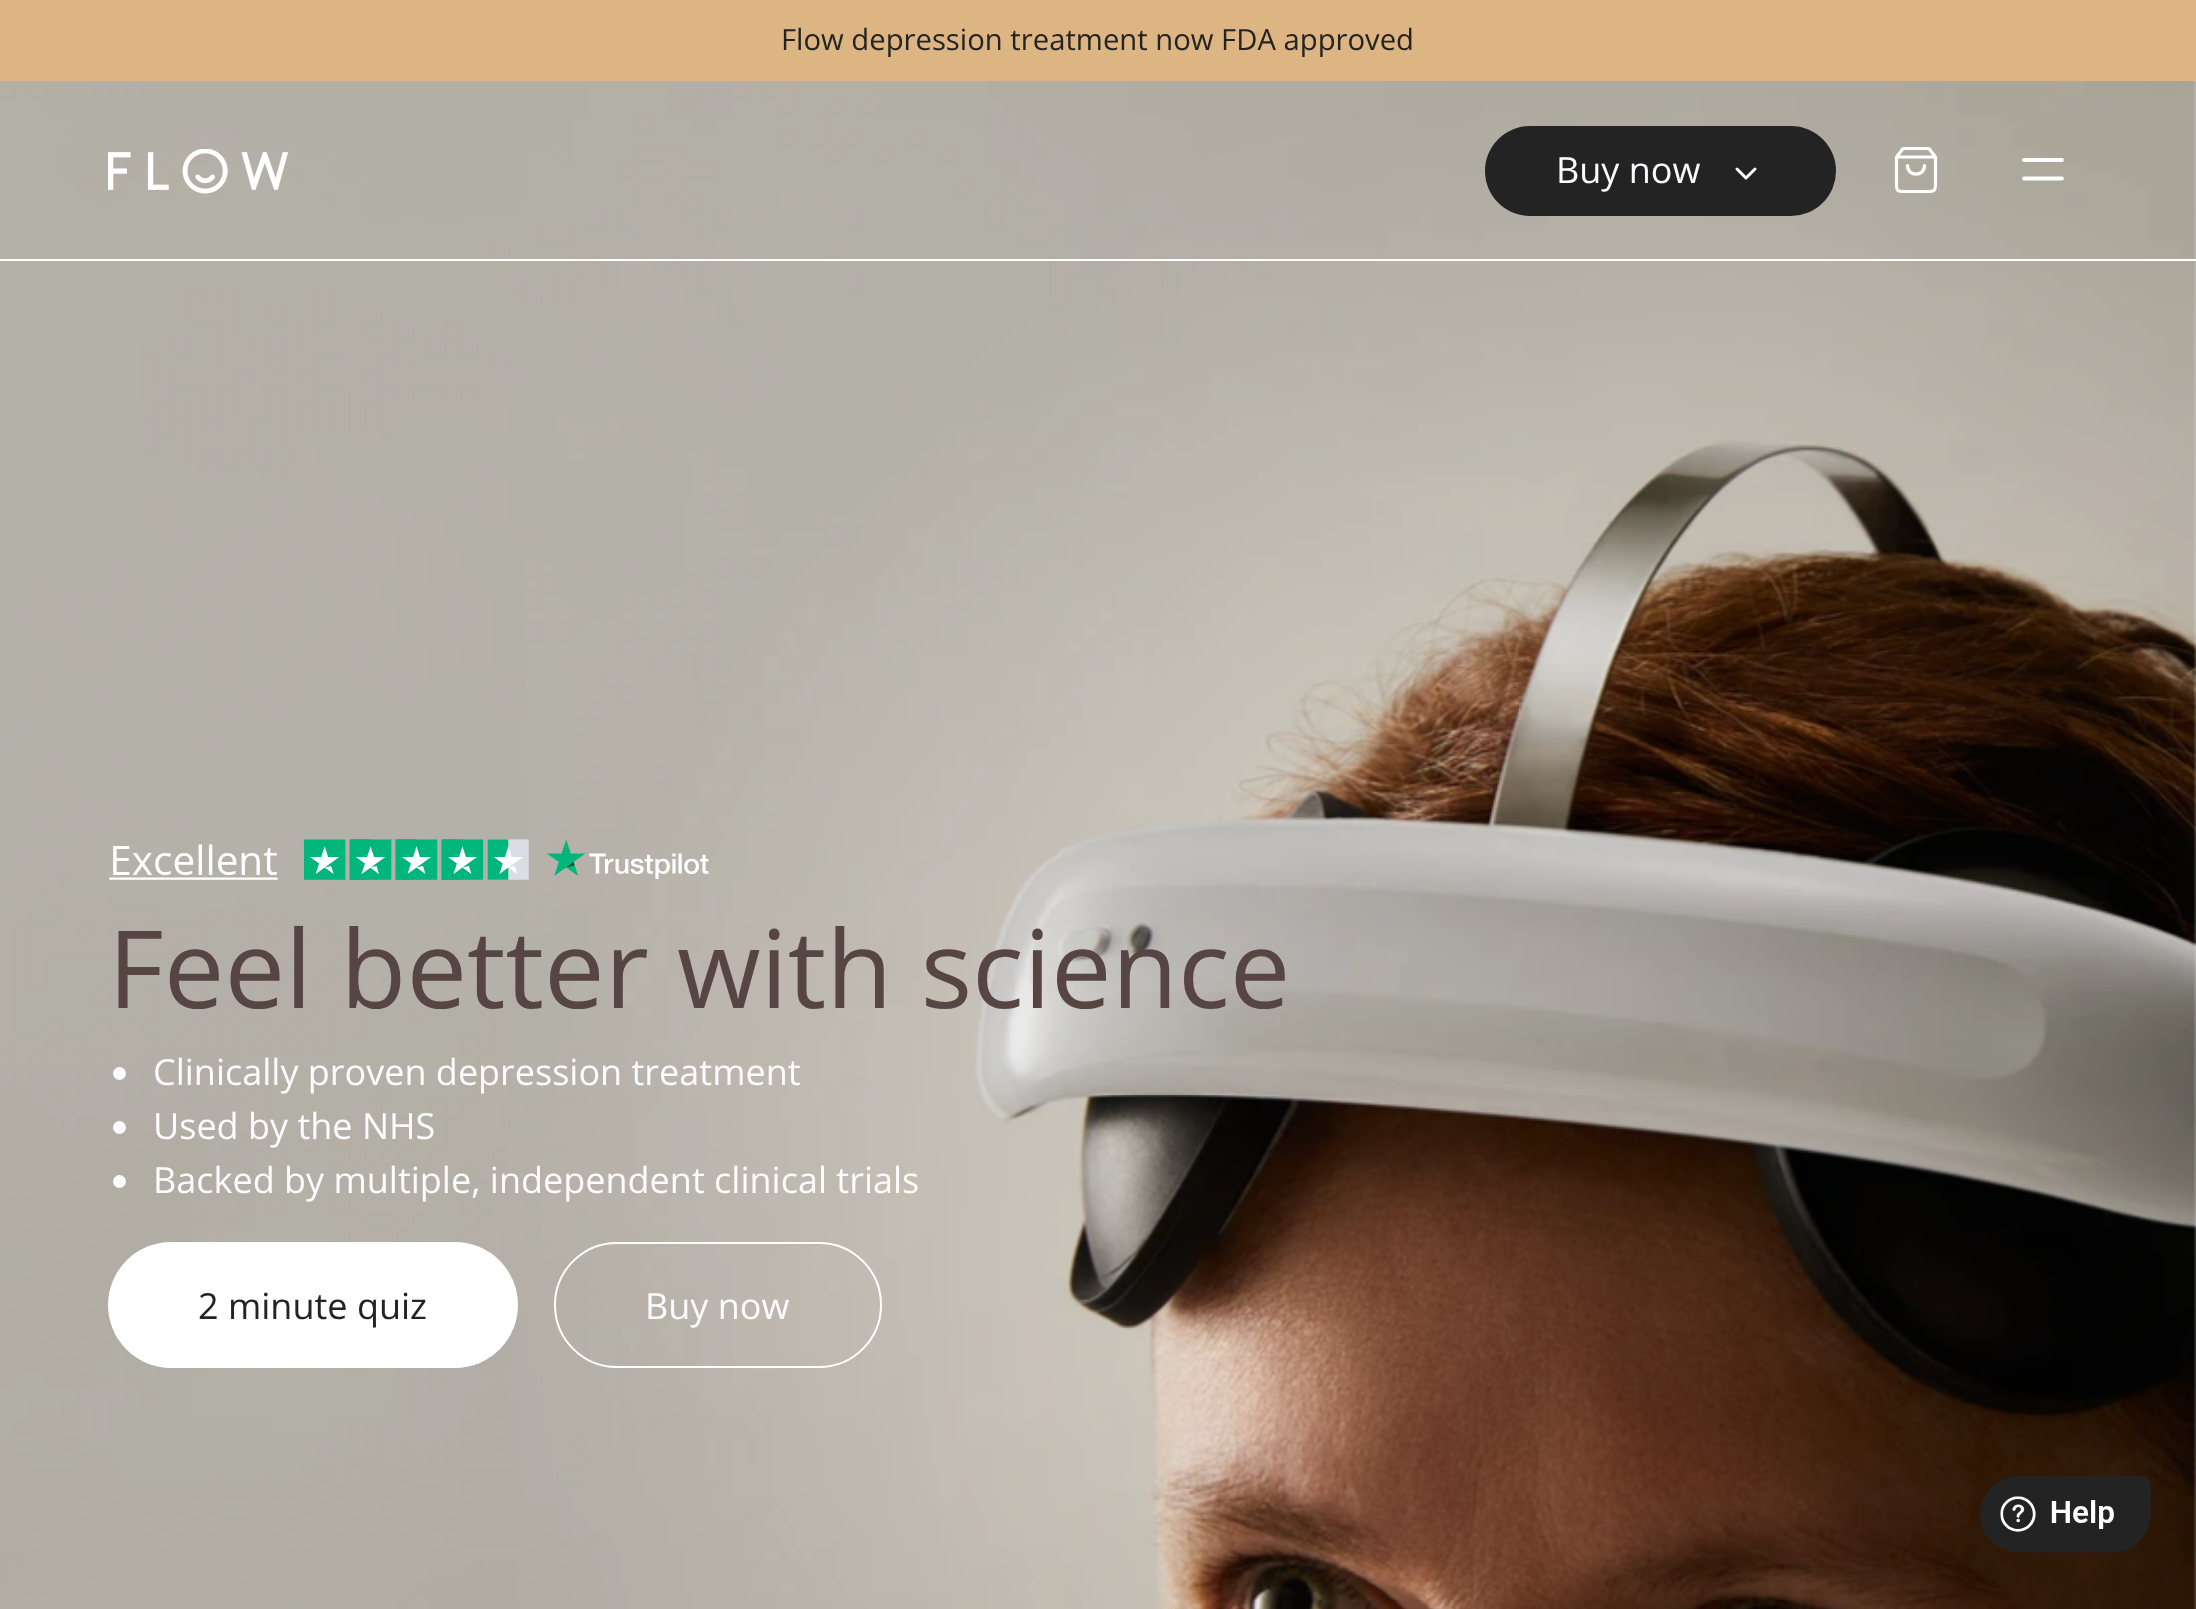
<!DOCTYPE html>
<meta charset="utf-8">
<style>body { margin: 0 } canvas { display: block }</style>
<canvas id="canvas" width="2196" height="1609"></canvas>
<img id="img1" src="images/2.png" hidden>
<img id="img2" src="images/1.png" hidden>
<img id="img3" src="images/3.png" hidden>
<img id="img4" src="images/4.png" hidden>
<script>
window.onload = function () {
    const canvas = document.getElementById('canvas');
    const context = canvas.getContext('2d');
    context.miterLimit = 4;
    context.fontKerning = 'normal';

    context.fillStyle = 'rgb(255, 255, 255)';
    context.fillRect(0, 0, 2196, 1609);
    context.fillStyle = 'rgb(221, 181, 130)';
    context.fillRect(0, 0, 2196, 81);
    context.drawImage(document.getElementById('img1'), 0, 81, 2196, 1528);
    context.fillStyle = 'rgb(255, 255, 255)';
    context.fillRect(0, 259, 2196, 2);
    context.drawImage(document.getElementById('img2'), 108, 149, 180, 45);
    context.fillStyle = 'rgb(35, 35, 35)';
    context.beginPath();
    context.roundRect(1485, 126, 351, 90, 45);
    context.fill();
    context.beginPath();
    context.moveTo(1737, 169);
    context.lineTo(1746, 178);
    context.lineTo(1755, 169);
    context.strokeStyle = 'rgb(255, 255, 255)';
    context.lineWidth = 3;
    context.lineCap = 'round';
    context.lineJoin = 'round';
    context.stroke();
    context.beginPath();
    context.moveTo(1903, 148.5);
    context.lineTo(1896.5, 157);
    context.lineTo(1896.5, 182.5);
    context.bezierCurveTo(1896.5, 191.5, 1896.5, 191.5, 1906, 191.5);
    context.lineTo(1926, 191.5);
    context.bezierCurveTo(1935, 191.5, 1935.5, 191.5, 1935.5, 182.5);
    context.lineTo(1935.5, 157);
    context.lineTo(1929, 148.5);
    context.closePath();
    context.moveTo(1896.5, 157);
    context.lineTo(1935.5, 157);
    context.moveTo(1924.5, 165.5);
    context.bezierCurveTo(1924.5, 177, 1907.5, 177, 1907.5, 165.5);
    context.lineWidth = 3.2;
    context.stroke();
    context.beginPath();
    context.moveTo(2024, 160);
    context.lineTo(2062, 160);
    context.moveTo(2024, 178.5);
    context.lineTo(2062, 178.5);
    context.lineWidth = 3.8;
    context.stroke();
    context.drawImage(document.getElementById('img3'), 109, 839, 600, 41);
    context.fillStyle = 'rgb(252, 252, 254)';
    context.beginPath();
    context.arc(119.5, 1073.5, 6.5, 0, 2 * Math.PI);
    context.fill();
    context.beginPath();
    context.arc(119.5, 1127.5, 6.5, 0, 2 * Math.PI);
    context.fill();
    context.beginPath();
    context.arc(119.5, 1181.5, 6.5, 0, 2 * Math.PI);
    context.fill();
    context.fillStyle = 'rgb(255, 255, 255)';
    context.beginPath();
    context.roundRect(108, 1242, 410, 126, 63);
    context.fill();
    context.beginPath();
    context.roundRect(555, 1243, 326, 124, 62);
    context.lineWidth = 2;
    context.lineJoin = 'miter';
    context.stroke();
    context.drawImage(document.getElementById('img4'), 1980, 1476, 171, 77);
    context.font = '29.25px Open Sans';
    context.fillStyle = 'rgb(35, 35, 35)';
    context.fillText('Flow depression treatment now FDA approved', 781, 50);
    context.font = '36px Open Sans';
    context.fillStyle = 'rgb(252, 252, 254)';
    context.fillText('Buy now', 1556, 183);
    context.font = '108px Open Sans';
    context.fillStyle = 'rgb(86, 69, 67)';
    context.fillText('Feel better with science', 108, 1008);
    context.font = '36px Open Sans';
    context.fillStyle = 'rgb(252, 252, 254)';
    context.fillText('Clinically proven depression treatment', 153, 1085);
    context.fillText('Used by the NHS', 153, 1139);
    context.fillText('Backed by multiple, independent clinical trials', 153, 1193);
    context.fillStyle = 'rgb(35, 35, 35)';
    context.fillText('2 minute quiz', 198, 1319);
    context.fillStyle = 'rgb(252, 252, 254)';
    context.fillText('Buy now', 645, 1319);
};
</script>
